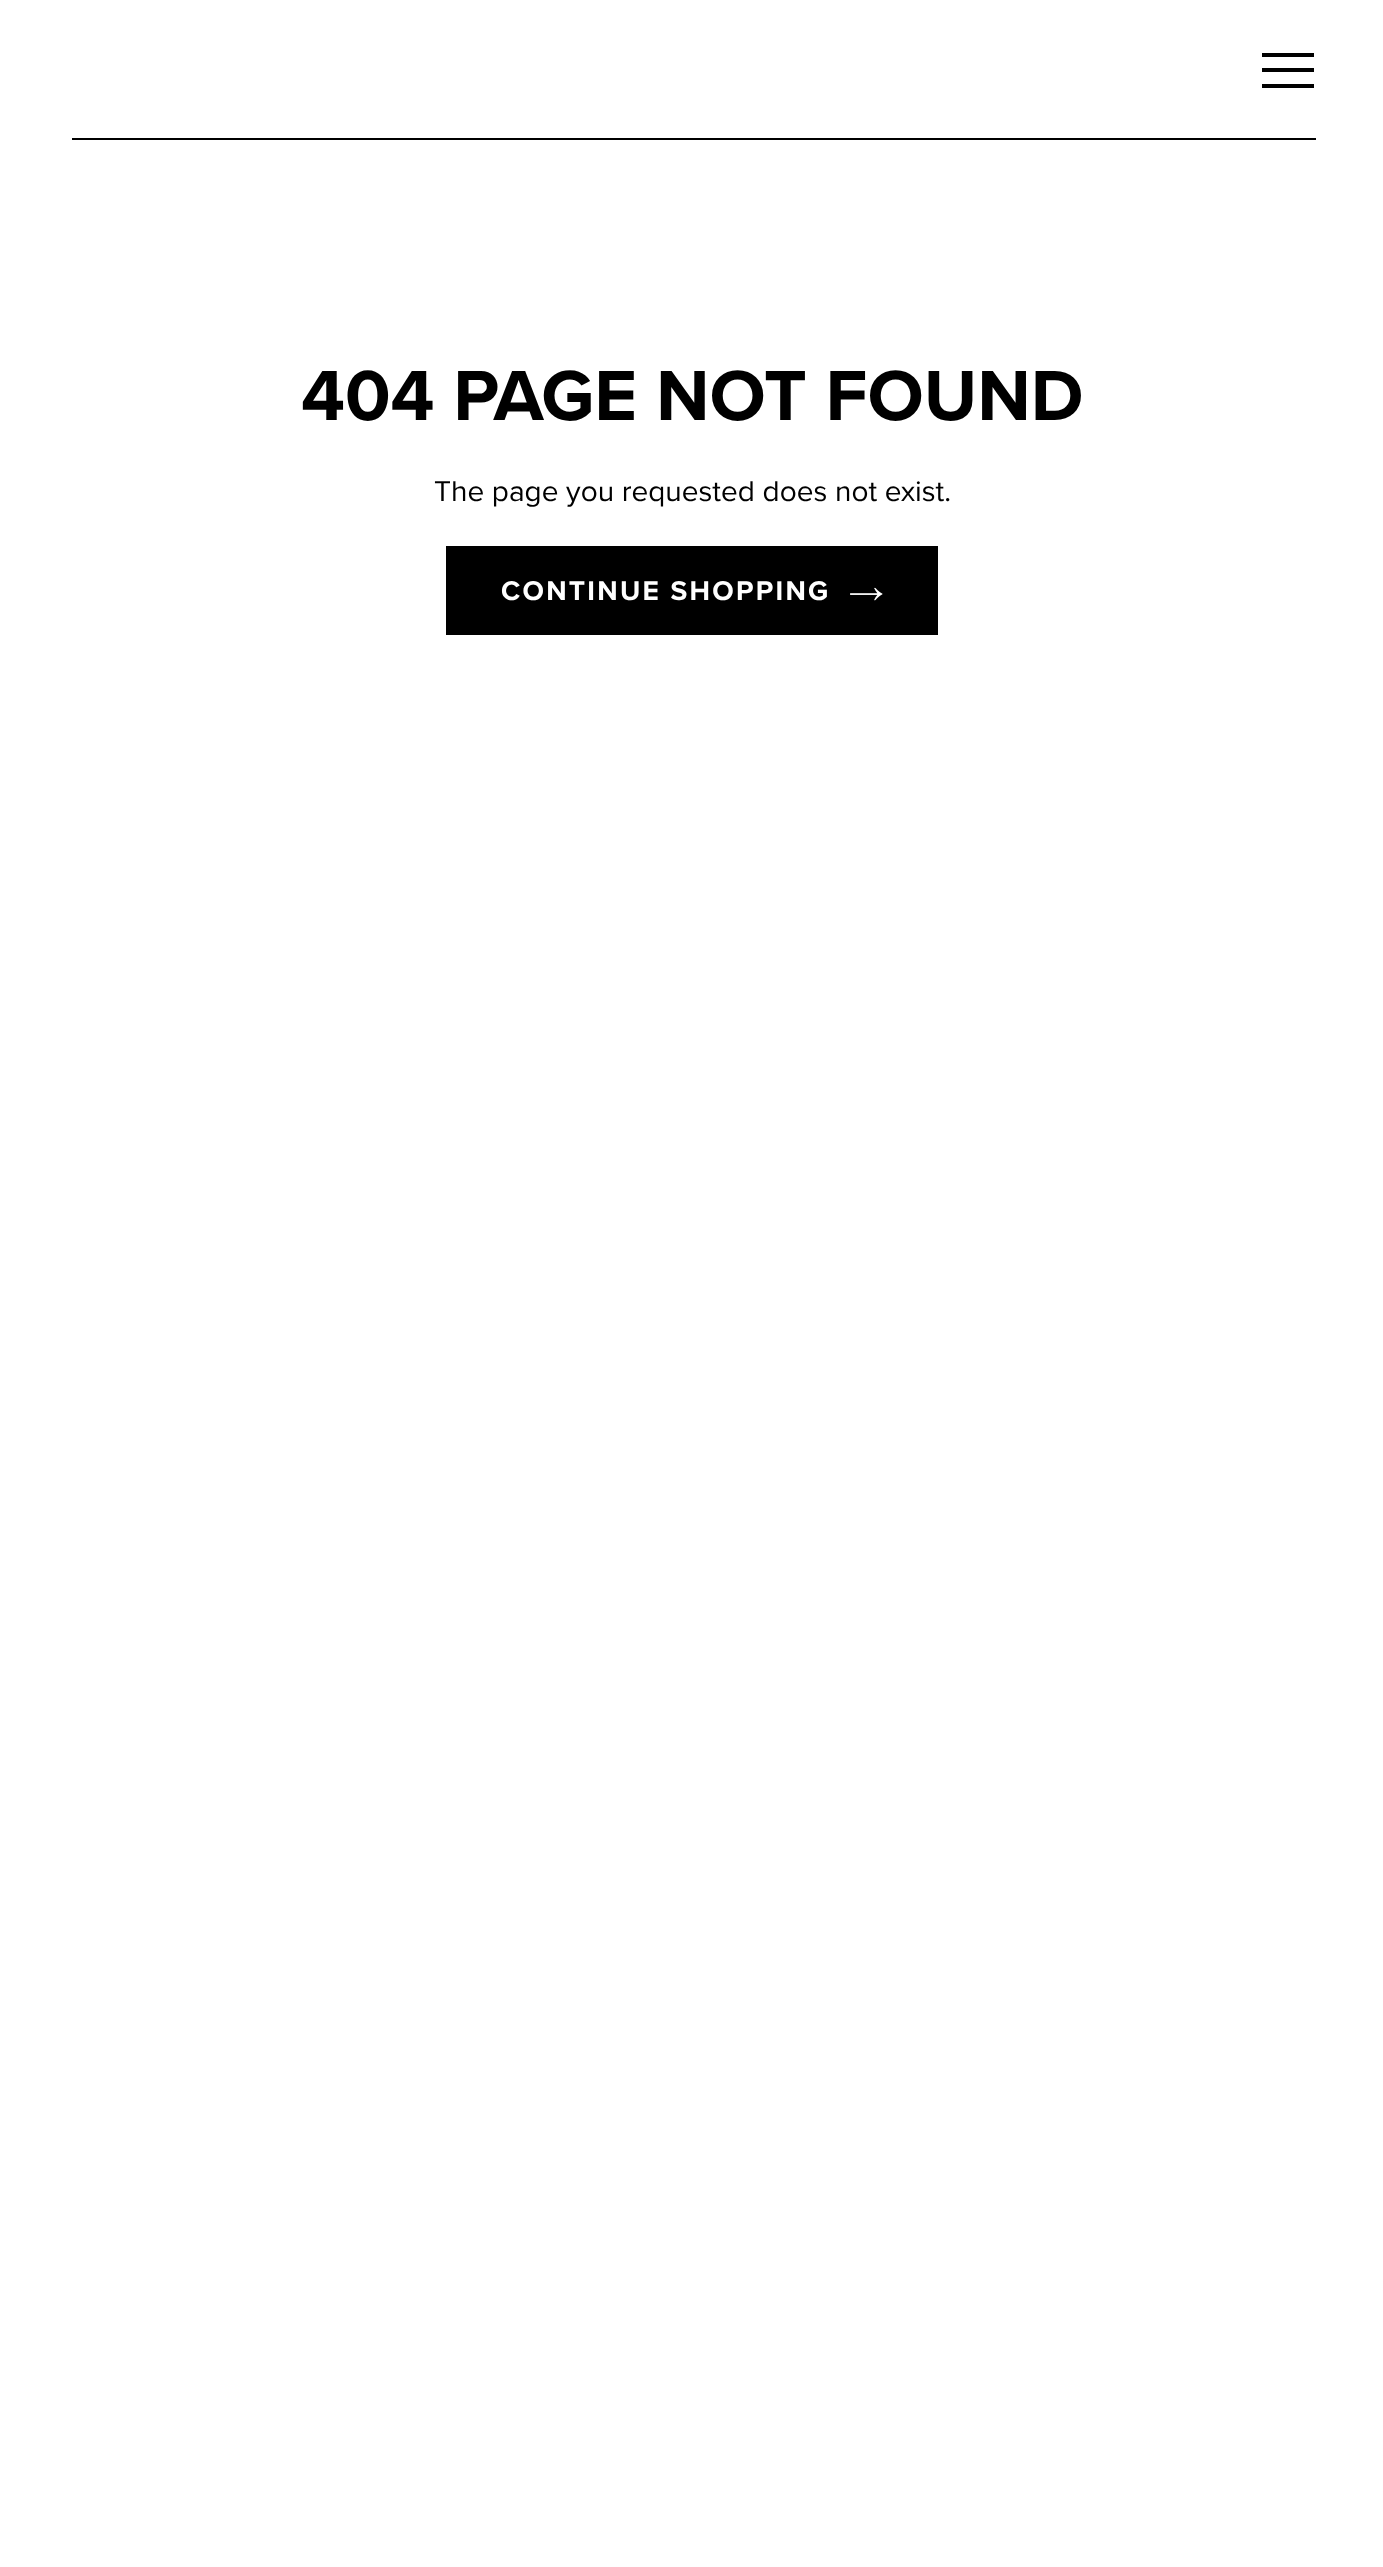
<!DOCTYPE html>
<meta charset="utf-8">
<style>body { margin: 0 } canvas { display: block }</style>
<canvas id="canvas" width="1383" height="2567"></canvas>
<img id="img1" src="images/1.png" hidden>
<script>
window.onload = function () {
    const canvas = document.getElementById('canvas');
    const context = canvas.getContext('2d');
    context.miterLimit = 4;
    context.fontKerning = 'normal';

    context.fillStyle = 'rgb(255, 255, 255)';
    context.fillRect(0, 0, 1383, 2567);
    context.fillStyle = 'rgb(0, 0, 0)';
    context.fillRect(1262, 68, 52, 4);
    context.fillRect(1262, 53, 52, 4);
    context.fillRect(1262, 84, 52, 4);
    context.fillRect(72, 138, 1244, 2);
    context.fillRect(446, 546, 492, 89);
    context.drawImage(document.getElementById('img1'), 850, 587, 33, 14);
    context.font = 'bold 73.5px Proxima Nova';
    context.fillText('404 PAGE NOT FOUND', 301, 420);
    context.font = '29.75px Proxima Nova';
    context.fillText('The page you requested does not exist.', 434, 501);
    context.letterSpacing = '2.25px';
    context.font = 'bold 28px Proxima Nova';
    context.fillStyle = 'rgb(255, 255, 255)';
    context.fillText('CONTINUE SHOPPING', 501, 600);
};
</script>
